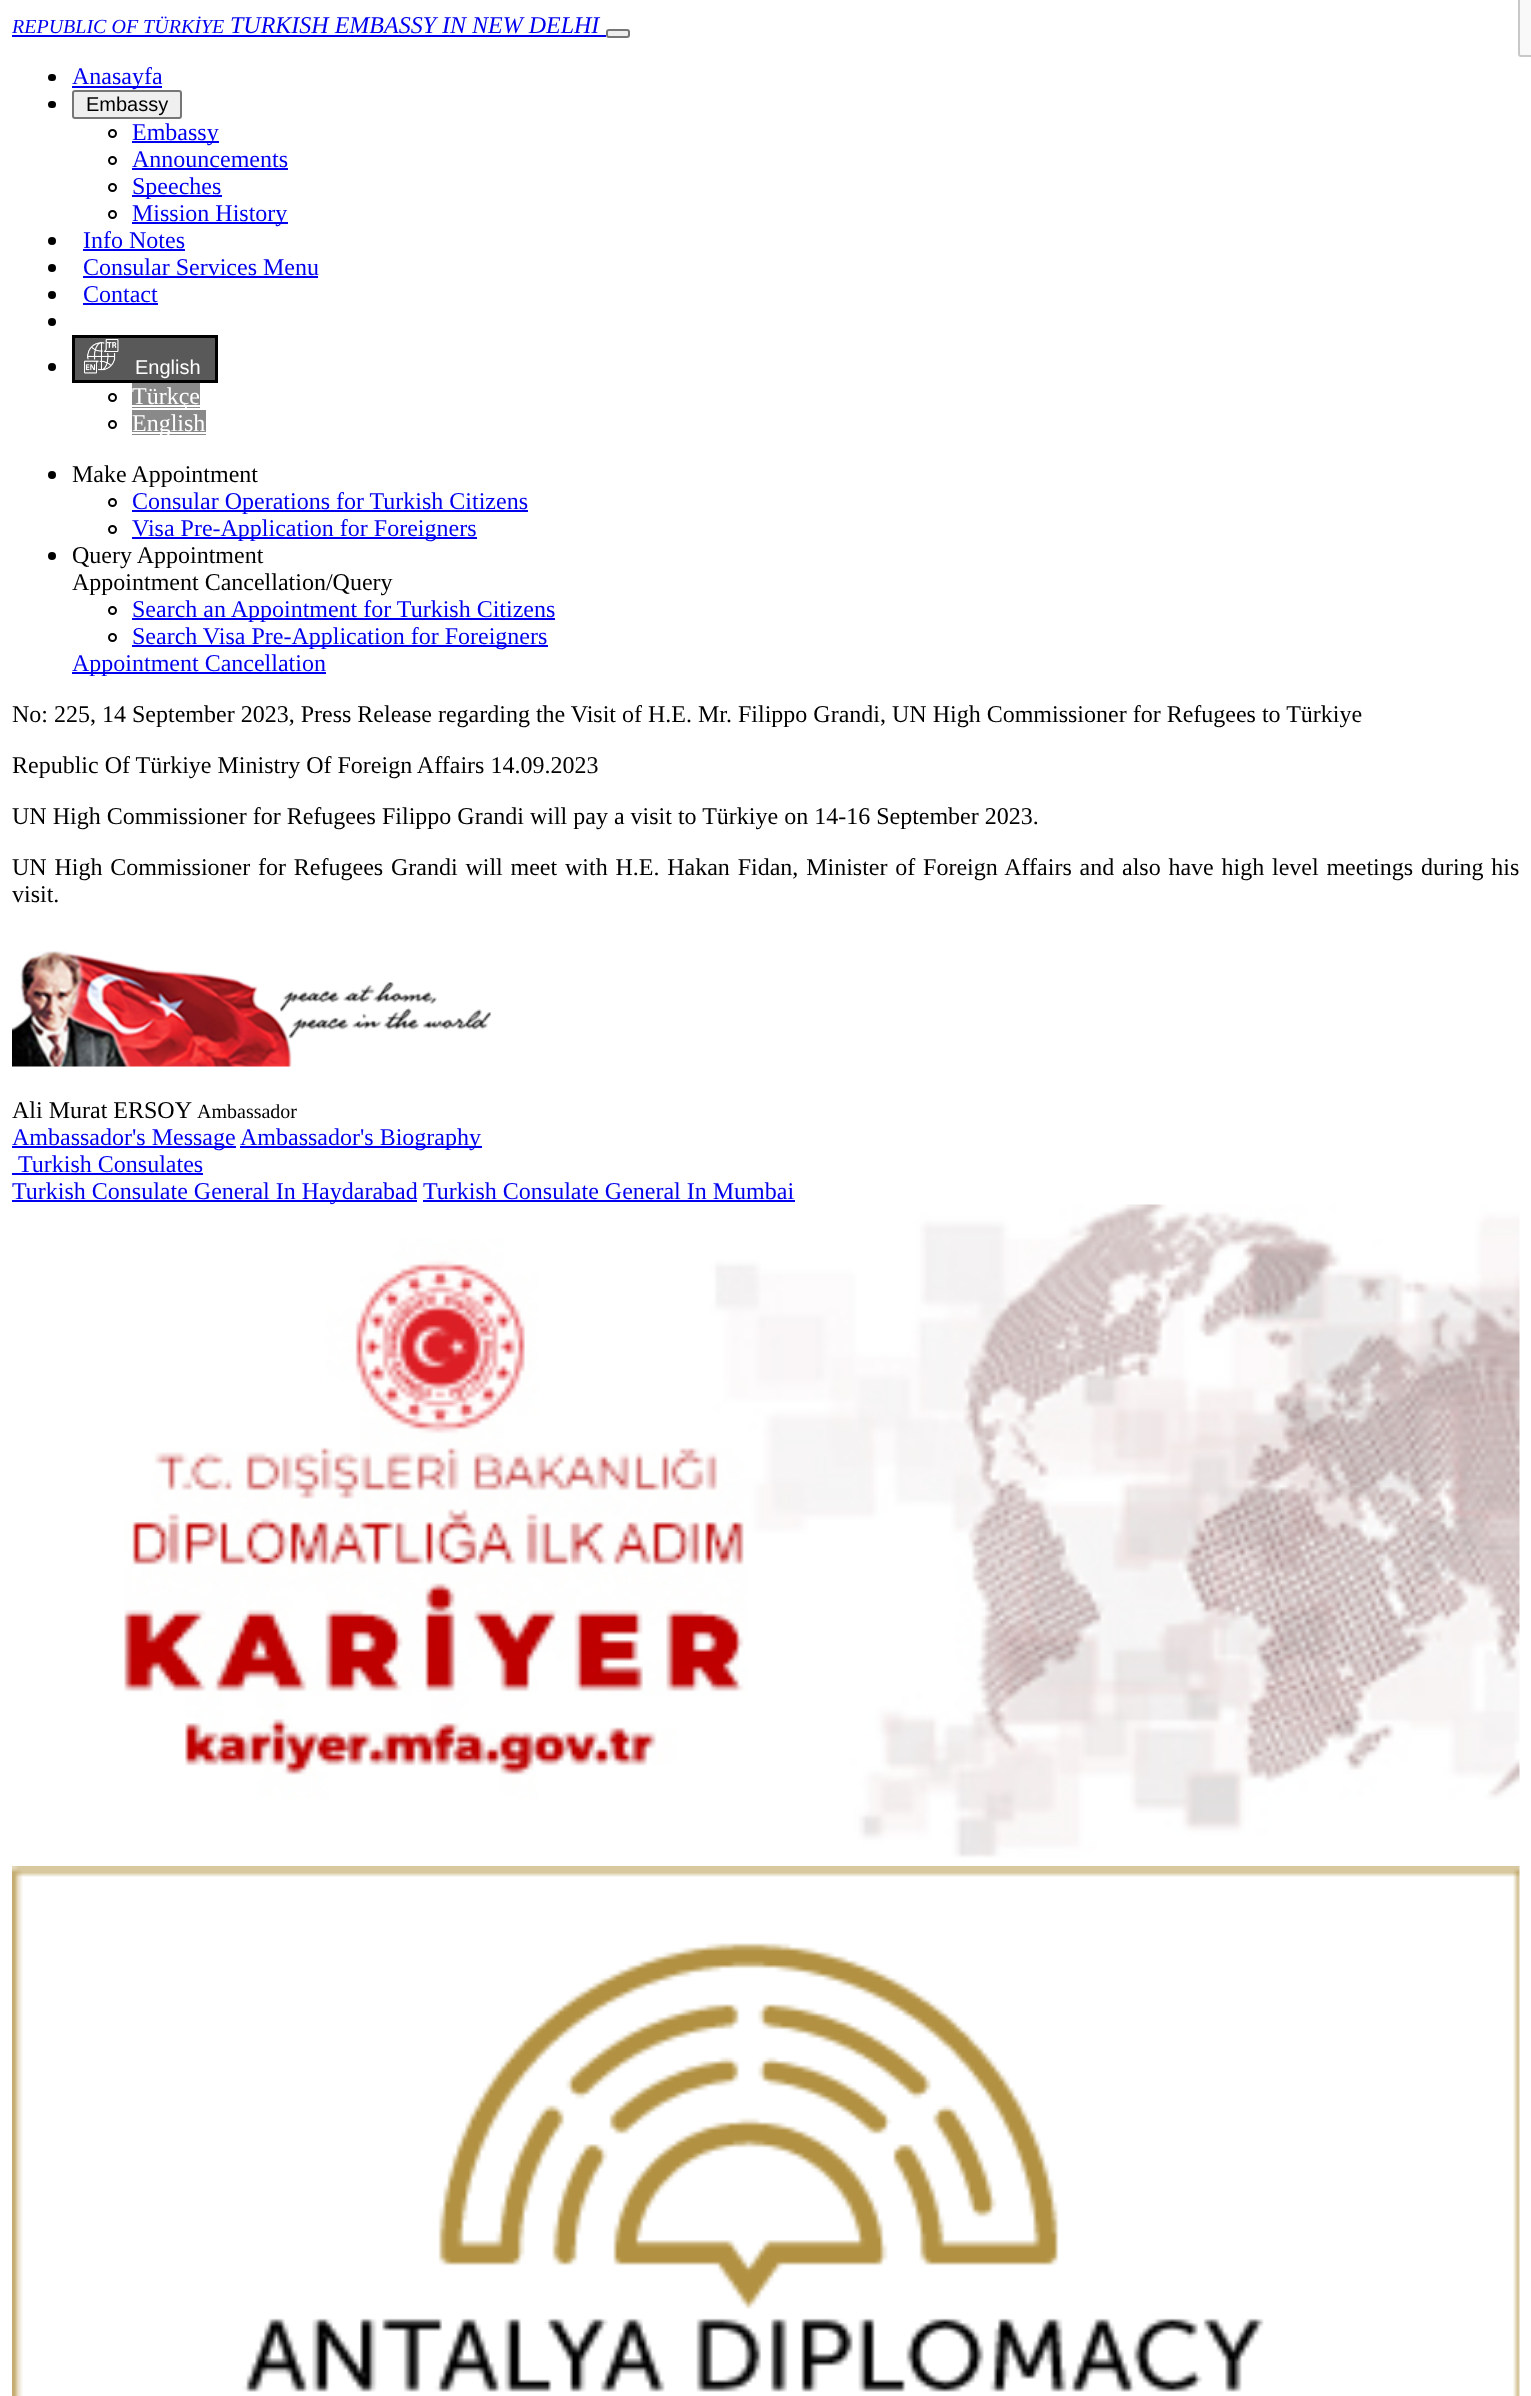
<!DOCTYPE html>
<meta charset="utf-8">
<style>body { margin: 0 } canvas { display: block }</style>
<canvas id="canvas" width="1531" height="2396"></canvas>
<img id="img1" src="images/1.png" hidden>
<img id="img2" src="images/2.png" hidden>
<img id="img3" src="images/4.png" hidden>
<img id="img4" src="images/3.png" hidden>
<script>
window.onload = function () {
    const canvas = document.getElementById('canvas');
    const context = canvas.getContext('2d');
    context.miterLimit = 4;
    context.fontKerning = 'normal';

    context.fillStyle = 'rgb(255, 255, 255)';
    context.fillRect(0, 0, 1531, 2396);
    context.fillStyle = 'rgb(0, 0, 238)';
    context.fillRect(12, 35, 594, 2);
    context.fillStyle = 'rgb(239, 239, 239)';
    context.beginPath();
    context.roundRect(607, 30, 22, 7, 2);
    context.fill();
    context.strokeStyle = 'rgb(118, 118, 118)';
    context.lineWidth = 2;
    context.stroke();
    context.fillStyle = 'rgb(0, 0, 0)';
    context.beginPath();
    context.roundRect(48, 74, 8, 7, 3.5);
    context.fill();
    context.fillStyle = 'rgb(0, 0, 238)';
    context.fillRect(72, 86, 90, 2);
    context.fillStyle = 'rgb(0, 0, 0)';
    context.beginPath();
    context.roundRect(48, 101, 8, 7, 3.5);
    context.fill();
    context.fillStyle = 'rgb(239, 239, 239)';
    context.beginPath();
    context.roundRect(73, 91, 108, 27, 2);
    context.fill();
    context.stroke();
    context.beginPath();
    context.arc(112.5, 133.5, 3.5, 0, 2 * Math.PI);
    context.strokeStyle = 'rgb(0, 0, 0)';
    context.stroke();
    context.fillStyle = 'rgb(0, 0, 238)';
    context.fillRect(132, 141, 87, 2);
    context.beginPath();
    context.arc(112.5, 160.5, 3.5, 0, 2 * Math.PI);
    context.stroke();
    context.fillRect(132, 168, 156, 2);
    context.beginPath();
    context.arc(112.5, 187.5, 3.5, 0, 2 * Math.PI);
    context.stroke();
    context.fillRect(132, 195, 90, 2);
    context.beginPath();
    context.arc(112.5, 214.5, 3.5, 0, 2 * Math.PI);
    context.stroke();
    context.fillRect(132, 222, 156, 2);
    context.fillStyle = 'rgb(0, 0, 0)';
    context.beginPath();
    context.arc(52, 241, 4, 0, 2 * Math.PI);
    context.fill();
    context.fillStyle = 'rgb(0, 0, 238)';
    context.fillRect(83, 249, 102, 2);
    context.fillStyle = 'rgb(0, 0, 0)';
    context.beginPath();
    context.arc(52, 268, 4, 0, 2 * Math.PI);
    context.fill();
    context.fillStyle = 'rgb(0, 0, 238)';
    context.fillRect(83, 276, 235, 2);
    context.fillStyle = 'rgb(0, 0, 0)';
    context.beginPath();
    context.arc(52, 295, 4, 0, 2 * Math.PI);
    context.fill();
    context.fillStyle = 'rgb(0, 0, 238)';
    context.fillRect(83, 303, 75, 2);
    context.fillStyle = 'rgb(0, 0, 0)';
    context.beginPath();
    context.arc(52, 322, 4, 0, 2 * Math.PI);
    context.fill();
    context.beginPath();
    context.arc(52, 367, 4, 0, 2 * Math.PI);
    context.fill();
    context.fillStyle = 'rgb(89, 89, 89)';
    context.beginPath();
    context.rect(73.5, 336.5, 143, 45);
    context.fill();
    context.lineWidth = 3;
    context.stroke();
    context.drawImage(document.getElementById('img1'), 84, 339, 35, 35);
    context.beginPath();
    context.arc(112.5, 397.5, 3.5, 0, 2 * Math.PI);
    context.lineWidth = 2;
    context.stroke();
    context.fillStyle = 'rgb(137, 137, 137)';
    context.fillRect(132, 383, 68, 25);
    context.fillStyle = 'rgb(255, 255, 255)';
    context.fillRect(132, 405, 68, 2);
    context.beginPath();
    context.arc(112.5, 424.5, 3.5, 0, 2 * Math.PI);
    context.stroke();
    context.fillStyle = 'rgb(137, 137, 137)';
    context.fillRect(132, 410, 74, 25);
    context.fillStyle = 'rgb(255, 255, 255)';
    context.fillRect(132, 432, 74, 2);
    context.fillStyle = 'rgb(0, 0, 0)';
    context.beginPath();
    context.arc(52, 475, 4, 0, 2 * Math.PI);
    context.fill();
    context.beginPath();
    context.arc(112.5, 502.5, 3.5, 0, 2 * Math.PI);
    context.stroke();
    context.fillStyle = 'rgb(0, 0, 238)';
    context.fillRect(132, 510, 396, 2);
    context.beginPath();
    context.arc(112.5, 529.5, 3.5, 0, 2 * Math.PI);
    context.stroke();
    context.fillRect(132, 537, 345, 2);
    context.fillStyle = 'rgb(0, 0, 0)';
    context.beginPath();
    context.arc(52, 556, 4, 0, 2 * Math.PI);
    context.fill();
    context.beginPath();
    context.arc(112.5, 610.5, 3.5, 0, 2 * Math.PI);
    context.stroke();
    context.fillStyle = 'rgb(0, 0, 238)';
    context.fillRect(132, 618, 423, 2);
    context.beginPath();
    context.arc(112.5, 637.5, 3.5, 0, 2 * Math.PI);
    context.stroke();
    context.fillRect(132, 645, 416, 2);
    context.fillRect(72, 672, 254, 2);
    context.drawImage(document.getElementById('img2'), 12, 950, 479, 117);
    context.fillRect(12, 1146, 224, 2);
    context.fillRect(240, 1146, 242, 2);
    context.fillRect(12, 1173, 191, 2);
    context.fillRect(12, 1200, 405, 2);
    context.fillRect(423, 1200, 372, 2);
    context.drawImage(document.getElementById('img3'), 12, 1866, 1508, 530);
    context.fillStyle = 'rgb(249, 249, 249)';
    context.beginPath();
    context.roundRect(1519, -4, 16, 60, 2);
    context.fill();
    context.strokeStyle = 'rgb(200, 200, 200)';
    context.stroke();
    context.font = 'italic 20px Liberation Serif';
    context.fillStyle = 'rgb(0, 0, 238)';
    context.fillText('REPUBLIC OF TÜRKİYE', 12, 33);
    context.font = 'italic 24px Liberation Serif';
    context.fillText('TURKISH EMBASSY IN NEW DELHI', 230, 33);
    context.font = '24px Liberation Serif';
    context.fillText('Anasayfa', 72, 84);
    context.font = '20px Liberation Sans';
    context.fillStyle = 'rgb(0, 0, 0)';
    context.fillText('Embassy', 86, 111);
    context.font = '24px Liberation Serif';
    context.fillStyle = 'rgb(0, 0, 238)';
    context.fillText('Embassy', 132, 140);
    context.fillText('Announcements', 132, 167);
    context.fillText('Speeches', 132, 194);
    context.fillText('Mission History', 132, 221);
    context.fillText('Info Notes', 83, 248);
    context.fillText('Consular Services Menu', 83, 275);
    context.fillText('Contact', 83, 302);
    context.font = '20px Liberation Sans';
    context.fillStyle = 'rgb(255, 255, 255)';
    context.fillText('English', 135, 374);
    context.font = '24px Liberation Serif';
    context.fillText('Türkçe', 132, 404);
    context.fillText('English', 132, 431);
    context.fillStyle = 'rgb(0, 0, 0)';
    context.fillText('Make Appointment', 72, 482);
    context.fillStyle = 'rgb(0, 0, 238)';
    context.fillText('Consular Operations for Turkish Citizens', 132, 509);
    context.fillText('Visa Pre-Application for Foreigners', 132, 536);
    context.fillStyle = 'rgb(0, 0, 0)';
    context.fillText('Query Appointment', 72, 563);
    context.fillText('Appointment Cancellation/Query', 72, 590);
    context.fillStyle = 'rgb(0, 0, 238)';
    context.fillText('Search an Appointment for Turkish Citizens', 132, 617);
    context.fillText('Search Visa Pre-Application for Foreigners', 132, 644);
    context.fillText('Appointment Cancellation', 72, 671);
    context.fillStyle = 'rgb(0, 0, 0)';
    context.fillText('No: 225, 14 September 2023, Press Release regarding the Visit of H.E. Mr. Filippo Grandi, UN High Commissioner for Refugees to Türkiye', 12, 722);
    context.fillText('Republic Of Türkiye Ministry Of Foreign Affairs 14.09.2023', 12, 773);
    context.fillText('UN High Commissioner for Refugees Filippo Grandi will pay a visit to Türkiye on 14-16 September 2023.', 12, 824);
    context.wordSpacing = '1.8px';
    context.fillText('UN High Commissioner for Refugees Grandi will meet with H.E. Hakan Fidan, Minister of Foreign Affairs and also have high level meetings during his', 12, 875);
    context.wordSpacing = '0px';
    context.fillText('visit.', 12, 902);
    context.fillText('Ali Murat ERSOY', 12, 1118);
    context.font = '20px Liberation Serif';
    context.fillText('Ambassador', 197, 1118);
    context.font = '24px Liberation Serif';
    context.fillStyle = 'rgb(0, 0, 238)';
    context.fillText('Ambassador\'s Message', 12, 1145);
    context.fillText('Ambassador\'s Biography', 240, 1145);
    context.fillText('Turkish Consulates', 18, 1172);
    context.fillText('Turkish Consulate General In Haydarabad', 12, 1199);
    context.fillText('Turkish Consulate General In Mumbai', 423, 1199);
    context.drawImage(document.getElementById('img4'), 124, 1204, 1396, 654);
};
</script>
